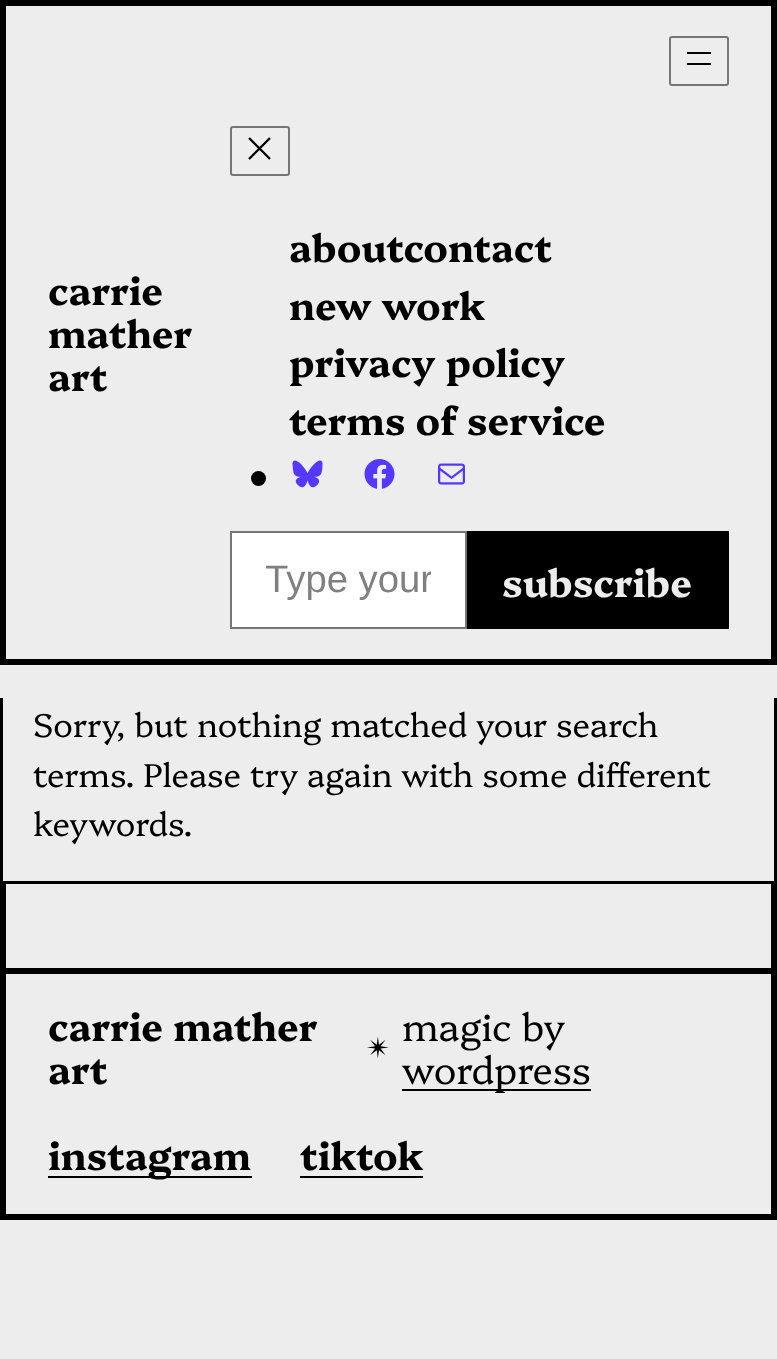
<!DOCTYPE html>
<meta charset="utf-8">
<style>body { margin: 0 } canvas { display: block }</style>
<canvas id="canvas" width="777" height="1359"></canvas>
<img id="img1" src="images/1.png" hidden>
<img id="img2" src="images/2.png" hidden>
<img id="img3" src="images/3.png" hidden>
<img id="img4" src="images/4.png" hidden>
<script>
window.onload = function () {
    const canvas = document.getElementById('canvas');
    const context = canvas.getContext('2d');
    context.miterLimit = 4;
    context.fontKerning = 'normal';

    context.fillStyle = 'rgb(237, 237, 237)';
    context.fillRect(0, 0, 777, 1359);
    context.strokeStyle = 'rgb(0, 0, 0)';
    context.lineWidth = 6;
    context.strokeRect(3, 3, 771, 659);
    context.beginPath();
    context.roundRect(670, 37, 58, 48, 2);
    context.strokeStyle = 'rgb(118, 118, 118)';
    context.lineWidth = 2;
    context.stroke();
    context.fillStyle = 'rgb(0, 0, 0)';
    context.fillRect(687, 52, 24, 2);
    context.fillRect(687, 63, 24, 2);
    context.beginPath();
    context.roundRect(231, 127, 58, 48, 2);
    context.stroke();
    context.drawImage(document.getElementById('img1'), 248, 137, 23, 23);
    context.beginPath();
    context.arc(258.5, 478.5, 7.5, 0, 2 * Math.PI);
    context.fill();
    context.drawImage(document.getElementById('img2'), 292, 460, 31, 28);
    context.drawImage(document.getElementById('img3'), 364, 459, 31, 30);
    context.drawImage(document.getElementById('img4'), 438, 463, 27, 22);
    context.fillStyle = 'rgb(255, 255, 255)';
    context.beginPath();
    context.rect(231, 532, 235, 96);
    context.fill();
    context.stroke();
    context.fillStyle = 'rgb(0, 0, 0)';
    context.fillRect(467, 531, 262, 98);
    context.fillRect(774, 698, 3, 276);
    context.fillRect(0, 698, 3, 276);
    context.fillRect(3, 881, 771, 3);
    context.fillRect(771, 881, 3, 93);
    context.fillRect(3, 968, 771, 6);
    context.fillRect(3, 881, 3, 93);
    context.fillRect(771, 974, 6, 246);
    context.fillRect(0, 1214, 777, 6);
    context.fillRect(0, 974, 6, 246);
    context.fillRect(402, 1089, 189, 2);
    context.fillRect(48, 1176, 204, 2);
    context.fillRect(300, 1176, 123, 2);
    context.font = 'bold 38.25px Platypi';
    context.fillText('carrie', 48, 305);
    context.fillText('mather', 48, 348);
    context.fillText('art', 48, 391);
    context.fillText('aboutcontact', 289, 262);
    context.fillText('new work', 289, 320);
    context.fillText('privacy policy', 289, 377);
    context.fillText('terms of service', 289, 435);
    context.save();
    context.beginPath();
    context.rect(266, 558, 165, 44);
    context.clip();
    context.font = '38.25px Liberation Sans';
    context.fillStyle = 'rgb(128, 128, 128)';
    context.fillText('Type your', 265, 592);
    context.restore();
    context.fillStyle = 'rgb(237, 237, 237)';
    context.fillText('subscribe', 502, 597);
    context.font = '300 33.1px Platypi';
    context.fillStyle = 'rgb(0, 0, 0)';
    context.fillText('Sorry, but nothing matched your search', 33, 737);
    context.fillText('terms. Please try again with some different', 33, 787);
    context.fillText('keywords.', 33, 836);
    context.font = 'bold 38.25px Platypi';
    context.fillText('carrie mather', 48, 1041);
    context.fillText('art', 48, 1084);
    context.font = '29px DejaVu Sans';
    context.fillText('✴︎', 366, 1058);
    context.font = '300 38.25px Platypi';
    context.fillText('magic by', 402, 1041);
    context.fillText('wordpress', 402, 1084);
    context.font = 'bold 38.25px Platypi';
    context.fillText('instagram', 48, 1170);
    context.fillText('tiktok', 300, 1170);
};
</script>
